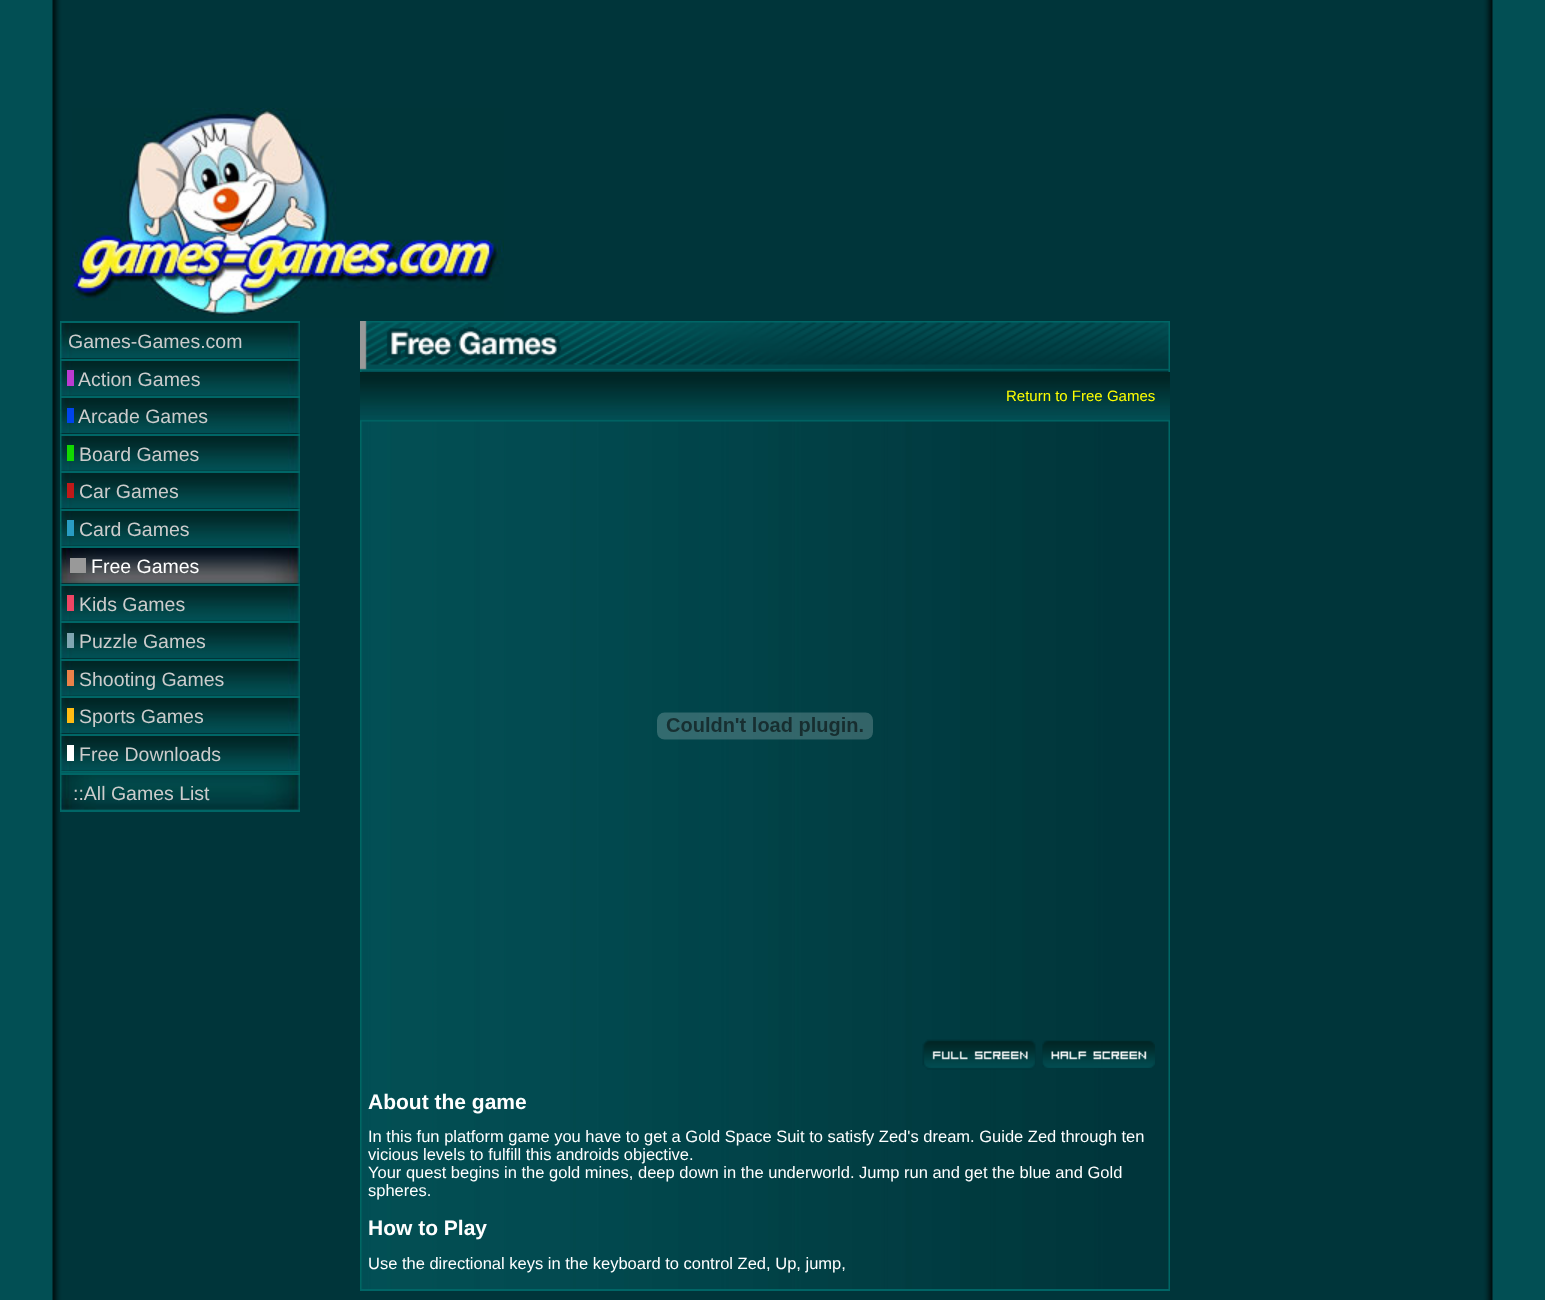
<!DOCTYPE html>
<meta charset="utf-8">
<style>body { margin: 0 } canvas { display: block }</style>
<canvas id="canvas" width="1545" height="1300"></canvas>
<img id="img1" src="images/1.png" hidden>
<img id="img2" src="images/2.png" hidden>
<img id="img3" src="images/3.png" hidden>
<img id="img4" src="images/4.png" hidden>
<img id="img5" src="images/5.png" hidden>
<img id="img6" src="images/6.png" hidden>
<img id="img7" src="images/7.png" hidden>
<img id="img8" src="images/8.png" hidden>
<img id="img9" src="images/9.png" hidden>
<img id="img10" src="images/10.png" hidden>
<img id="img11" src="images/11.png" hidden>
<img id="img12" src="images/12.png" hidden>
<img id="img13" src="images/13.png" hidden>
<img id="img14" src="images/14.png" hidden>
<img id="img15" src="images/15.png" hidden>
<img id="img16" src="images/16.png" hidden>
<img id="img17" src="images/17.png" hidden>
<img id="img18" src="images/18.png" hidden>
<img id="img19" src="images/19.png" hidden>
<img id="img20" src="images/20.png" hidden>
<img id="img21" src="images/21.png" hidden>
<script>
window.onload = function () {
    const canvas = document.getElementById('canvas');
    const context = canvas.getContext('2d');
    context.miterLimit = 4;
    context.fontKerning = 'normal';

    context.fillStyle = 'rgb(2, 79, 84)';
    context.fillRect(0, 0, 1545, 1300);
    context.drawImage(document.getElementById('img1'), 52, 0, 1441, 1300);
    context.drawImage(document.getElementById('img2'), 72, 108, 432, 210);
    context.drawImage(document.getElementById('img3'), 60, 323, 240, 36);
    context.fillStyle = 'rgb(0, 102, 102)';
    context.fillRect(60, 321, 240, 2);
    context.drawImage(document.getElementById('img4'), 60, 358, 240, 38);
    context.fillRect(60, 359, 240, 2);
    context.fillStyle = 'rgb(187, 59, 209)';
    context.fillRect(67, 370, 7, 16);
    context.drawImage(document.getElementById('img5'), 60, 398, 240, 36);
    context.fillStyle = 'rgb(0, 102, 102)';
    context.fillRect(60, 396, 240, 2);
    context.fillStyle = 'rgb(0, 68, 236)';
    context.fillRect(67, 408, 7, 15);
    context.drawImage(document.getElementById('img6'), 60, 433, 240, 38);
    context.fillStyle = 'rgb(0, 102, 102)';
    context.fillRect(60, 434, 240, 2);
    context.fillStyle = 'rgb(18, 216, 0)';
    context.fillRect(67, 445, 7, 16);
    context.drawImage(document.getElementById('img7'), 60, 473, 240, 36);
    context.fillStyle = 'rgb(0, 102, 102)';
    context.fillRect(60, 471, 240, 2);
    context.fillStyle = 'rgb(191, 25, 25)';
    context.fillRect(67, 483, 7, 15);
    context.drawImage(document.getElementById('img8'), 60, 508, 240, 38);
    context.fillStyle = 'rgb(0, 102, 102)';
    context.fillRect(60, 509, 240, 2);
    context.fillStyle = 'rgb(41, 156, 195)';
    context.fillRect(67, 520, 7, 16);
    context.drawImage(document.getElementById('img9'), 60, 548, 240, 36);
    context.fillStyle = 'rgb(0, 102, 102)';
    context.fillRect(60, 546, 240, 2);
    context.fillStyle = 'rgb(153, 153, 153)';
    context.fillRect(70, 558, 16, 15);
    context.drawImage(document.getElementById('img10'), 60, 583, 240, 38);
    context.fillStyle = 'rgb(0, 102, 102)';
    context.fillRect(60, 584, 240, 2);
    context.fillStyle = 'rgb(238, 69, 100)';
    context.fillRect(67, 595, 7, 16);
    context.drawImage(document.getElementById('img11'), 60, 623, 240, 36);
    context.fillStyle = 'rgb(0, 102, 102)';
    context.fillRect(60, 621, 240, 2);
    context.fillStyle = 'rgb(128, 166, 178)';
    context.fillRect(67, 633, 7, 15);
    context.drawImage(document.getElementById('img4'), 60, 658, 240, 38);
    context.fillStyle = 'rgb(0, 102, 102)';
    context.fillRect(60, 659, 240, 2);
    context.fillStyle = 'rgb(234, 129, 73)';
    context.fillRect(67, 670, 7, 16);
    context.drawImage(document.getElementById('img12'), 60, 698, 240, 36);
    context.fillStyle = 'rgb(0, 102, 102)';
    context.fillRect(60, 696, 240, 2);
    context.fillStyle = 'rgb(255, 187, 19)';
    context.fillRect(67, 708, 7, 15);
    context.drawImage(document.getElementById('img13'), 60, 733, 240, 38);
    context.fillStyle = 'rgb(0, 102, 102)';
    context.fillRect(60, 734, 240, 2);
    context.fillStyle = 'rgb(255, 255, 255)';
    context.fillRect(67, 745, 7, 16);
    context.fillStyle = 'rgb(0, 102, 102)';
    context.fillRect(60, 771, 240, 2);
    context.drawImage(document.getElementById('img14'), 60, 772, 240, 38);
    context.fillRect(60, 773, 240, 2);
    context.fillRect(60, 810, 240, 2);
    context.drawImage(document.getElementById('img15'), 360, 321, 810, 968);
    context.fillRect(360, 1289, 810, 2);
    context.drawImage(document.getElementById('img16'), 360, 321, 809, 50);
    context.drawImage(document.getElementById('img17'), 386, 326, 176, 33);
    context.drawImage(document.getElementById('img18'), 360, 372, 810, 50);
    context.drawImage(document.getElementById('img19'), 657, 712, 216, 28);
    context.drawImage(document.getElementById('img20'), 922, 1039, 114, 31);
    context.drawImage(document.getElementById('img21'), 1042, 1040, 113, 28);
    context.font = '19.5px Liberation Sans';
    context.fillStyle = 'rgb(204, 204, 204)';
    context.fillText('Games-Games.com', 68, 348);
    context.fillText('Action Games', 78, 386);
    context.fillText('Arcade Games', 78, 423);
    context.fillText('Board Games', 79, 461);
    context.fillText('Car Games', 79, 498);
    context.fillText('Card Games', 79, 536);
    context.fillStyle = 'rgb(255, 255, 255)';
    context.fillText('Free Games', 91, 573);
    context.fillStyle = 'rgb(204, 204, 204)';
    context.fillText('Kids Games', 79, 611);
    context.fillText('Puzzle Games', 79, 648);
    context.fillText('Shooting Games', 79, 686);
    context.fillText('Sports Games', 79, 723);
    context.fillText('Free Downloads', 79, 761);
    context.fillText('::All Games List', 73, 800);
    context.font = '15px Liberation Sans';
    context.fillStyle = 'rgb(255, 255, 0)';
    context.fillText('Return to Free Games', 1006, 401);
    context.font = 'bold 21px Liberation Sans';
    context.fillStyle = 'rgb(255, 255, 255)';
    context.fillText('About the game', 368, 1109);
    context.font = '16.5px Liberation Sans';
    context.fillText('In this fun platform game you have to get a Gold Space Suit to satisfy Zed\'s dream. Guide Zed through ten', 368, 1142);
    context.fillText('vicious levels to fulfill this androids objective.', 368, 1160);
    context.fillText('Your quest begins in the gold mines, deep down in the underworld. Jump run and get the blue and Gold', 368, 1178);
    context.fillText('spheres.', 368, 1196);
    context.font = 'bold 21px Liberation Sans';
    context.fillText('How to Play', 368, 1235);
    context.font = '16.5px Liberation Sans';
    context.fillText('Use the directional keys in the keyboard to control Zed, Up, jump,', 368, 1269);
};
</script>
